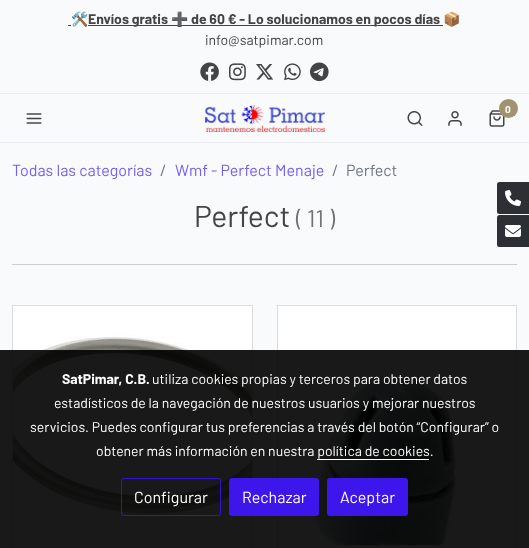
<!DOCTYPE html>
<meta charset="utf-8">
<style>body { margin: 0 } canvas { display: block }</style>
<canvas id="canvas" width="529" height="548"></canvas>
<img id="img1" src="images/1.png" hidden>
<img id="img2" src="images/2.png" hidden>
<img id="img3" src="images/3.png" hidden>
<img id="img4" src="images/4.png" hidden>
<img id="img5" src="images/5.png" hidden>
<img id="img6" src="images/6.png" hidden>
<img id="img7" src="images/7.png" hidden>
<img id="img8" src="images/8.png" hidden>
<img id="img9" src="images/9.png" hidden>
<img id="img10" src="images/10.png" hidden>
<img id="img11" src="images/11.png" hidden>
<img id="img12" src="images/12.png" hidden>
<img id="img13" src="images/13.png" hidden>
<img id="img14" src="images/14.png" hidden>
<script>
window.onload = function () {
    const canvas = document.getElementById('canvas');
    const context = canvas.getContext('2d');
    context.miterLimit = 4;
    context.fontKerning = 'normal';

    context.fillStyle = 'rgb(249, 250, 252)';
    context.fillRect(0, 0, 529, 548);
    context.fillStyle = 'rgb(234, 236, 239)';
    context.fillRect(0, 142, 529, 1);
    context.fillRect(0, 93, 529, 1);
    context.fillStyle = 'rgb(68, 68, 68)';
    context.fillRect(68, 25, 3, 1);
    context.fillRect(88, 25, 355, 1);
    context.drawImage(document.getElementById('img1'), 200, 62, 19, 19);
    context.drawImage(document.getElementById('img2'), 229, 63, 17, 18);
    context.drawImage(document.getElementById('img3'), 256, 64, 18, 16);
    context.drawImage(document.getElementById('img4'), 284, 63, 17, 18);
    context.drawImage(document.getElementById('img5'), 310, 62, 19, 20);
    context.drawImage(document.getElementById('img6'), 205, 105, 120, 27);
    context.drawImage(document.getElementById('img7'), 489, 110, 16, 17);
    context.fillStyle = 'rgb(160, 147, 112)';
    context.beginPath();
    context.arc(508.5, 108.5, 9.5, 0, 2 * Math.PI);
    context.fill();
    context.drawImage(document.getElementById('img8'), 407, 111, 16, 15);
    context.drawImage(document.getElementById('img9'), 448, 111, 14, 15);
    context.drawImage(document.getElementById('img10'), 26, 113, 16, 11);
    context.fillStyle = 'rgb(204, 205, 206)';
    context.fillRect(12, 264, 505, 1);
    context.strokeStyle = 'rgb(221, 221, 221)';
    context.strokeRect(12.5, 305.5, 240, 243);
    context.drawImage(document.getElementById('img11'), 13, 306, 239, 239);
    context.fillStyle = 'rgb(255, 255, 255)';
    context.fillRect(13, 545, 239, 3);
    context.strokeRect(277.5, 305.5, 239, 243);
    context.drawImage(document.getElementById('img12'), 278, 306, 238, 239);
    context.fillRect(278, 545, 238, 3);
    context.fillStyle = 'rgb(44, 48, 52)';
    context.beginPath();
    context.roundRect(497, 182, 32, 32, [2.5, 0, 0, 2.5]);
    context.fill();
    context.drawImage(document.getElementById('img13'), 505, 190, 16, 16);
    context.beginPath();
    context.roundRect(497, 215, 32, 32, [2.5, 0, 0, 2.5]);
    context.fill();
    context.drawImage(document.getElementById('img14'), 505, 225, 16, 12);
    context.fillStyle = 'rgba(0, 0, 0, 0.9)';
    context.fillRect(0, 350, 529, 198);
    context.fillStyle = 'rgb(255, 255, 255)';
    context.fillRect(317, 459, 112, 1);
    context.beginPath();
    context.roundRect(121.5, 478.5, 99, 37, 2);
    context.strokeStyle = 'rgb(53, 17, 216)';
    context.stroke();
    context.fillStyle = 'rgb(61, 22, 236)';
    context.beginPath();
    context.roundRect(229.5, 478.5, 89, 37, 2);
    context.fill();
    context.strokeStyle = 'rgb(61, 22, 236)';
    context.stroke();
    context.beginPath();
    context.roundRect(327.5, 478.5, 80, 37, 2);
    context.fill();
    context.stroke();
    context.font = '14px Noto Color Emoji';
    context.fillStyle = 'rgb(68, 68, 68)';
    context.fillText('🛠️', 71, 24);
    context.font = 'bold 14px Barlow';
    context.fillText('Envíos gratis', 88, 24);
    context.font = 'bold 14px Noto Color Emoji';
    context.fillText('➕', 171, 24);
    context.font = 'bold 14px Barlow';
    context.fillText('de 60 € - Lo solucionamos en pocos días', 191, 24);
    context.font = '14px Noto Color Emoji';
    context.fillText('📦', 443, 24);
    context.font = '14px Barlow';
    context.fillText('info@satpimar.com', 205, 45);
    context.font = 'bold 10px Barlow';
    context.fillStyle = 'rgb(255, 255, 255)';
    context.fillText('0', 505, 113);
    context.font = '16px Barlow';
    context.fillStyle = 'rgb(120, 93, 242)';
    context.fillText('Todas las categorías', 12, 176);
    context.fillStyle = 'rgb(108, 117, 125)';
    context.fillText('/', 160, 176);
    context.fillStyle = 'rgb(120, 93, 242)';
    context.fillText('Wmf - Perfect Menaje', 175, 176);
    context.fillStyle = 'rgb(108, 117, 125)';
    context.fillText('/', 332, 176);
    context.fillText('Perfect', 346, 176);
    context.font = '30px Barlow';
    context.fillStyle = 'rgb(68, 68, 68)';
    context.fillText('Perfect', 194, 227);
    context.font = '24px Barlow';
    context.fillStyle = 'rgb(113, 114, 114)';
    context.fillText('( 11 )', 296, 227);
    context.font = 'bold 14px Barlow';
    context.fillStyle = 'rgb(255, 255, 255)';
    context.fillText('SatPimar, C.B.', 62, 384);
    context.font = '14px Barlow';
    context.fillText('utiliza cookies propias y terceros para obtener datos', 152, 384);
    context.fillText('estadísticos de la navegación de nuestros usuarios y mejorar nuestros', 54, 408);
    context.fillText('servicios. Puedes configurar tus preferencias a través del botón “Configurar” o', 30, 432);
    context.fillText('obtener más información en nuestra política de cookies.', 96, 456);
    context.font = '16px Barlow';
    context.fillText('Configurar', 134, 503);
    context.fillText('Rechazar', 242, 503);
    context.fillText('Aceptar', 340, 503);
};
</script>
